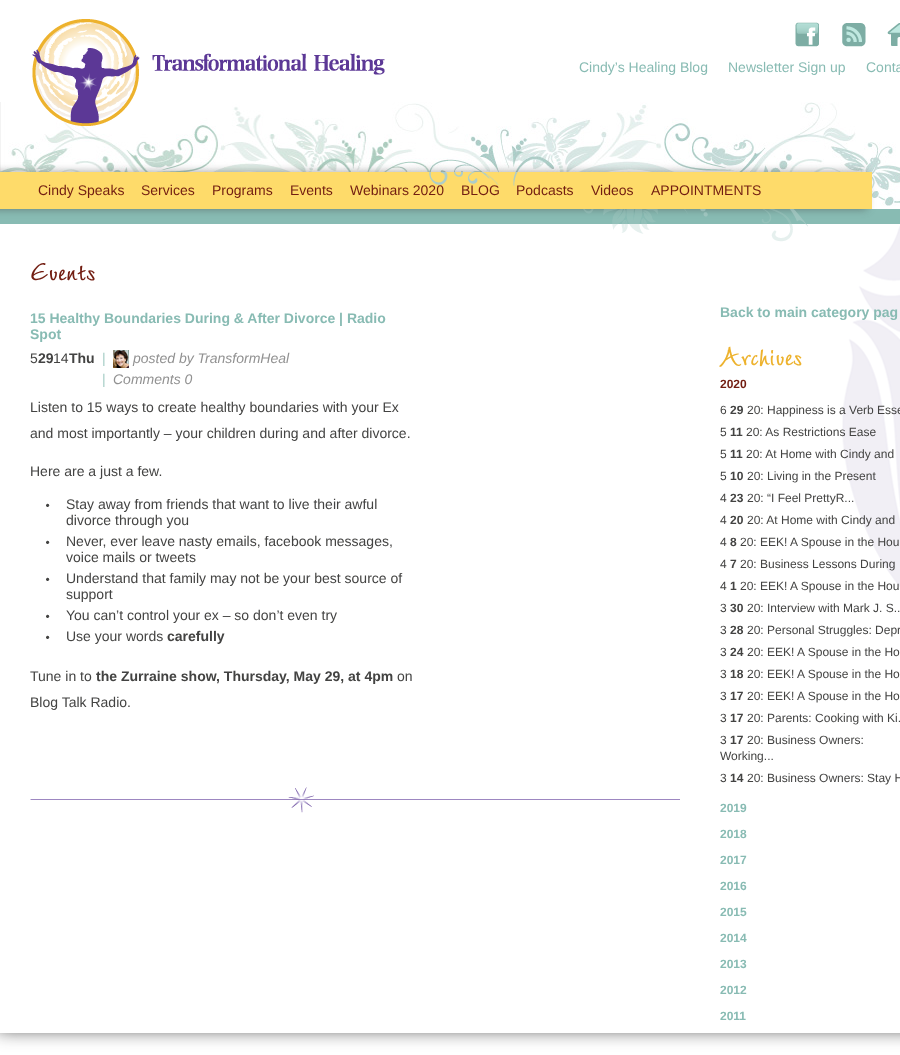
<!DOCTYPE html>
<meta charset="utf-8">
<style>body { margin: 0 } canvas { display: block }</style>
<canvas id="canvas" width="900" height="1055"></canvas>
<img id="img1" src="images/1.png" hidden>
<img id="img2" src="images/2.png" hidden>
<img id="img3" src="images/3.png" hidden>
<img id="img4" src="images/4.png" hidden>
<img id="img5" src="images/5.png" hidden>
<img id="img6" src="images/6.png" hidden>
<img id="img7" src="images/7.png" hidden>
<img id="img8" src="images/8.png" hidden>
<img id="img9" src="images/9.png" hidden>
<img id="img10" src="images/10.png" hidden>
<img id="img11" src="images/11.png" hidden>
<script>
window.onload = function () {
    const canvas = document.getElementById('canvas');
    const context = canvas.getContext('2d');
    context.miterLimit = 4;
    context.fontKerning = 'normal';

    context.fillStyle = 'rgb(255, 255, 255)';
    context.fillRect(0, 0, 900, 1055);
    context.fillStyle = 'rgb(34, 34, 34)';
    context.filter = 'blur(10px)';
    context.beginPath();
    context.rect(-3, -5, 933, 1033);
    context.fill();
    context.filter = 'none';
    context.fillStyle = 'rgb(255, 255, 255)';
    context.fillRect(0, 0, 900, 1033);
    context.drawImage(document.getElementById('img1'), 0, 102, 900, 107);
    context.drawImage(document.getElementById('img2'), 32, 19, 353, 107);
    context.drawImage(document.getElementById('img3'), 795, 22, 24, 25);
    context.drawImage(document.getElementById('img4'), 842, 23, 24, 24);
    context.drawImage(document.getElementById('img5'), 887, 23, 13, 23);
    context.fillStyle = 'rgb(136, 187, 179)';
    context.fillRect(0, 209, 900, 15);
    context.fillStyle = 'rgba(62, 62, 62, 0.5)';
    context.filter = 'blur(4px)';
    context.beginPath();
    context.rect(-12, 172, 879, 37);
    context.fill();
    context.filter = 'none';
    context.fillStyle = 'rgb(254, 219, 106)';
    context.fillRect(0, 172, 872, 37);
    context.drawImage(document.getElementById('img6'), 429, 172, 89, 14);
    context.drawImage(document.getElementById('img7'), 583, 209, 225, 33);
    context.drawImage(document.getElementById('img8'), 113, 350, 16, 18);
    context.drawImage(document.getElementById('img9'), 46, 503, 4, 4);
    context.drawImage(document.getElementById('img9'), 46, 540, 4, 4);
    context.drawImage(document.getElementById('img9'), 46, 577, 4, 4);
    context.drawImage(document.getElementById('img9'), 46, 614, 4, 4);
    context.drawImage(document.getElementById('img9'), 46, 635, 4, 4);
    context.drawImage(document.getElementById('img10'), 30, 787, 650, 26);
    context.drawImage(document.getElementById('img11'), 842, 226, 58, 361);
    context.font = '14px Liberation Sans';
    context.fillStyle = 'rgb(136, 187, 179)';
    context.fillText('Cindy’s Healing Blog', 579, 72);
    context.fillText('Newsletter Sign up', 728, 72);
    context.fillText('Conta', 866, 72);
    context.fillStyle = 'rgb(114, 29, 17)';
    context.fillText('Cindy Speaks', 38, 195);
    context.fillText('Services', 141, 195);
    context.fillText('Programs', 212, 195);
    context.fillText('Events', 290, 195);
    context.fillText('Webinars 2020', 350, 195);
    context.fillText('BLOG', 461, 195);
    context.fillText('Podcasts', 516, 195);
    context.fillText('Videos', 591, 195);
    context.fillText('APPOINTMENTS', 651, 195);
    context.font = 'bold 24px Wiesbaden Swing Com';
    context.fillText('Events', 30, 280);
    context.font = 'bold 14px Liberation Sans';
    context.fillStyle = 'rgb(136, 187, 179)';
    context.fillText('15 Healthy Boundaries During & After Divorce | Radio', 30, 323);
    context.fillText('Spot', 30, 339);
    context.font = '14px Liberation Sans';
    context.fillStyle = 'rgb(67, 67, 66)';
    context.fillText('5', 30, 363);
    context.font = 'bold 14px Liberation Sans';
    context.fillText('29', 38, 363);
    context.font = '14px Liberation Sans';
    context.fillText('14', 53, 363);
    context.font = 'bold 14px Liberation Sans';
    context.fillText('Thu', 69, 363);
    context.font = '14px Liberation Sans';
    context.fillStyle = 'rgb(165, 205, 197)';
    context.fillText('|', 102, 363);
    context.font = 'italic 14px Liberation Sans';
    context.fillStyle = 'rgb(145, 145, 145)';
    context.fillText('posted by TransformHeal', 133, 363);
    context.font = '14px Liberation Sans';
    context.fillStyle = 'rgb(165, 205, 197)';
    context.fillText('|', 102, 384);
    context.font = 'italic 14px Liberation Sans';
    context.fillStyle = 'rgb(145, 145, 145)';
    context.fillText('Comments 0', 113, 384);
    context.font = '14px Liberation Sans';
    context.fillStyle = 'rgb(67, 67, 66)';
    context.fillText('Listen to 15 ways to create healthy boundaries with your Ex', 30, 412);
    context.fillText('and most importantly – your children during and after divorce.', 30, 438);
    context.fillText('Here are a just a few.', 30, 476);
    context.fillText('Stay away from friends that want to live their awful', 66, 509);
    context.fillText('divorce through you', 66, 525);
    context.fillText('Never, ever leave nasty emails, facebook messages,', 66, 546);
    context.fillText('voice mails or tweets', 66, 562);
    context.fillText('Understand that family may not be your best source of', 66, 583);
    context.fillText('support', 66, 599);
    context.fillText('You can’t control your ex – so don’t even try', 66, 620);
    context.fillText('Use your words', 66, 641);
    context.font = 'bold 14px Liberation Sans';
    context.fillText('carefully', 167, 641);
    context.font = '14px Liberation Sans';
    context.fillText('Tune in to', 30, 681);
    context.font = 'bold 14px Liberation Sans';
    context.fillText('the Zurraine show, Thursday, May 29, at 4pm', 96, 681);
    context.font = '14px Liberation Sans';
    context.fillText('on', 397, 681);
    context.fillText('Blog Talk Radio.', 30, 707);
    context.font = 'bold 14px Liberation Sans';
    context.fillStyle = 'rgb(136, 187, 179)';
    context.fillText('Back to main category pag', 720, 317);
    context.font = 'bold 24px Wiesbaden Swing Com';
    context.fillStyle = 'rgb(237, 178, 45)';
    context.fillText('Archives', 720, 365);
    context.font = 'bold 12px Liberation Sans';
    context.fillStyle = 'rgb(114, 29, 17)';
    context.fillText('2020', 720, 388);
    context.font = '12px Liberation Sans';
    context.fillStyle = 'rgb(67, 67, 66)';
    context.fillText('6', 720, 414);
    context.font = 'bold 12px Liberation Sans';
    context.fillText('29', 730, 414);
    context.font = '12px Liberation Sans';
    context.fillText('20: Happiness is a Verb Esse', 747, 414);
    context.fillText('5', 720, 436);
    context.font = 'bold 12px Liberation Sans';
    context.fillText('11', 730, 436);
    context.font = '12px Liberation Sans';
    context.fillText('20: As Restrictions Ease', 746, 436);
    context.fillText('5', 720, 458);
    context.font = 'bold 12px Liberation Sans';
    context.fillText('11', 730, 458);
    context.font = '12px Liberation Sans';
    context.fillText('20: At Home with Cindy and', 746, 458);
    context.fillText('5', 720, 480);
    context.font = 'bold 12px Liberation Sans';
    context.fillText('10', 730, 480);
    context.font = '12px Liberation Sans';
    context.fillText('20: Living in the Present', 747, 480);
    context.fillText('4', 720, 502);
    context.font = 'bold 12px Liberation Sans';
    context.fillText('23', 730, 502);
    context.font = '12px Liberation Sans';
    context.fillText('20: “I Feel PrettyR...', 747, 502);
    context.fillText('4', 720, 524);
    context.font = 'bold 12px Liberation Sans';
    context.fillText('20', 730, 524);
    context.font = '12px Liberation Sans';
    context.fillText('20: At Home with Cindy and', 747, 524);
    context.fillText('4', 720, 546);
    context.font = 'bold 12px Liberation Sans';
    context.fillText('8', 730, 546);
    context.font = '12px Liberation Sans';
    context.fillText('20: EEK! A Spouse in the Hou', 740, 546);
    context.fillText('4', 720, 568);
    context.font = 'bold 12px Liberation Sans';
    context.fillText('7', 730, 568);
    context.font = '12px Liberation Sans';
    context.fillText('20: Business Lessons During', 740, 568);
    context.fillText('4', 720, 590);
    context.font = 'bold 12px Liberation Sans';
    context.fillText('1', 730, 590);
    context.font = '12px Liberation Sans';
    context.fillText('20: EEK! A Spouse in the Hou', 740, 590);
    context.fillText('3', 720, 612);
    context.font = 'bold 12px Liberation Sans';
    context.fillText('30', 730, 612);
    context.font = '12px Liberation Sans';
    context.fillText('20: Interview with Mark J. S..', 747, 612);
    context.fillText('3', 720, 634);
    context.font = 'bold 12px Liberation Sans';
    context.fillText('28', 730, 634);
    context.font = '12px Liberation Sans';
    context.fillText('20: Personal Struggles: Depr', 747, 634);
    context.fillText('3', 720, 656);
    context.font = 'bold 12px Liberation Sans';
    context.fillText('24', 730, 656);
    context.font = '12px Liberation Sans';
    context.fillText('20: EEK! A Spouse in the Ho', 747, 656);
    context.fillText('3', 720, 678);
    context.font = 'bold 12px Liberation Sans';
    context.fillText('18', 730, 678);
    context.font = '12px Liberation Sans';
    context.fillText('20: EEK! A Spouse in the Ho', 747, 678);
    context.fillText('3', 720, 700);
    context.font = 'bold 12px Liberation Sans';
    context.fillText('17', 730, 700);
    context.font = '12px Liberation Sans';
    context.fillText('20: EEK! A Spouse in the Ho', 747, 700);
    context.fillText('3', 720, 722);
    context.font = 'bold 12px Liberation Sans';
    context.fillText('17', 730, 722);
    context.font = '12px Liberation Sans';
    context.fillText('20: Parents: Cooking with Ki.', 747, 722);
    context.fillText('3', 720, 744);
    context.font = 'bold 12px Liberation Sans';
    context.fillText('17', 730, 744);
    context.font = '12px Liberation Sans';
    context.fillText('20: Business Owners:', 747, 744);
    context.fillText('Working...', 720, 760);
    context.fillText('3', 720, 782);
    context.font = 'bold 12px Liberation Sans';
    context.fillText('14', 730, 782);
    context.font = '12px Liberation Sans';
    context.fillText('20: Business Owners: Stay H', 747, 782);
    context.font = 'bold 12px Liberation Sans';
    context.fillStyle = 'rgb(136, 187, 179)';
    context.fillText('2019', 720, 812);
    context.fillText('2018', 720, 838);
    context.fillText('2017', 720, 864);
    context.fillText('2016', 720, 890);
    context.fillText('2015', 720, 916);
    context.fillText('2014', 720, 942);
    context.fillText('2013', 720, 968);
    context.fillText('2012', 720, 994);
    context.fillText('2011', 720, 1020);
};
</script>
